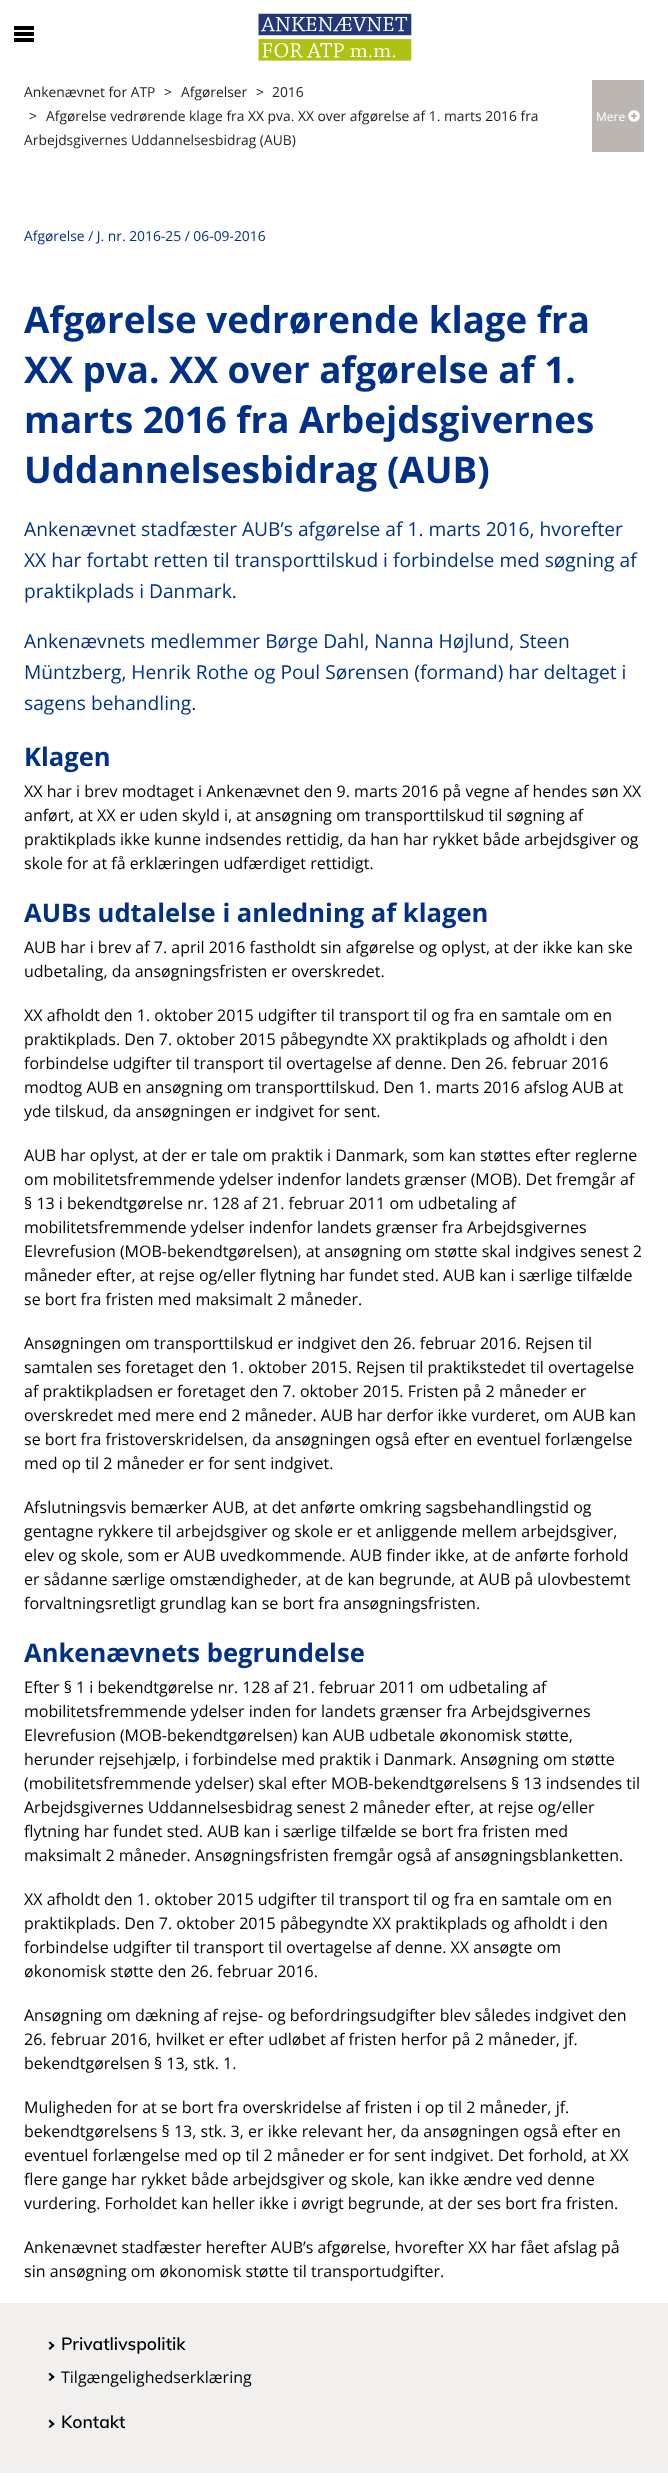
<!DOCTYPE html>
<meta charset="utf-8">
<style>body { margin: 0 } canvas { display: block }</style>
<canvas id="canvas" width="668" height="2476"></canvas>
<img id="img1" src="images/1.png" hidden>
<img id="img2" src="images/2.png" hidden>
<script>
window.onload = function () {
    const canvas = document.getElementById('canvas');
    const context = canvas.getContext('2d');
    context.miterLimit = 4;
    context.fontKerning = 'normal';

    context.fillStyle = 'rgb(255, 255, 255)';
    context.fillRect(0, 0, 668, 2476);
    context.fillStyle = 'rgb(0, 0, 0)';
    context.fillRect(14, 26, 20, 4);
    context.fillRect(14, 32, 20, 4);
    context.fillRect(14, 38, 20, 4);
    context.drawImage(document.getElementById('img1'), 258, 13, 154, 48);
    context.fillStyle = 'rgb(187, 182, 177)';
    context.fillRect(592, 80, 52, 72);
    context.drawImage(document.getElementById('img2'), 628, 110, 12, 12);
    context.fillStyle = 'rgb(241, 240, 239)';
    context.fillRect(0, 2303, 668, 170);
    context.fillStyle = 'rgb(0, 0, 0)';
    context.beginPath();
    context.moveTo(50, 2341.5);
    context.lineTo(54.5, 2345.5);
    context.lineTo(53, 2347);
    context.lineTo(48.5, 2342.5);
    context.closePath();
    context.fill();
    context.beginPath();
    context.moveTo(53, 2344);
    context.lineTo(54.5, 2345.5);
    context.lineTo(50, 2350);
    context.lineTo(48.5, 2348.5);
    context.closePath();
    context.fill();
    context.beginPath();
    context.moveTo(50, 2372.5);
    context.lineTo(54.5, 2377);
    context.lineTo(53, 2378.5);
    context.lineTo(48.5, 2374);
    context.closePath();
    context.fill();
    context.beginPath();
    context.moveTo(53, 2375.5);
    context.lineTo(54.5, 2377);
    context.lineTo(50, 2381);
    context.lineTo(48.5, 2380);
    context.closePath();
    context.fill();
    context.beginPath();
    context.moveTo(50, 2419.5);
    context.lineTo(54.5, 2424);
    context.lineTo(53, 2425.5);
    context.lineTo(48.5, 2421);
    context.closePath();
    context.fill();
    context.beginPath();
    context.moveTo(53, 2422.5);
    context.lineTo(54.5, 2424);
    context.lineTo(50, 2428);
    context.lineTo(48.5, 2427);
    context.closePath();
    context.fill();
    context.font = '13.85px Open Sans';
    context.fillStyle = 'rgb(30, 30, 30)';
    context.fillText('Ankenævnet for ATP', 24, 97);
    context.fillText('>', 164, 97);
    context.fillText('Afgørelser', 181, 97);
    context.fillText('>', 256, 97);
    context.fillText('2016', 272, 97);
    context.fillText('>', 29, 121);
    context.fillText('Afgørelse vedrørende klage fra XX pva. XX over afgørelse af 1. marts 2016 fra', 46, 121);
    context.fillText('Arbejdsgivernes Uddannelsesbidrag (AUB)', 24, 145);
    context.font = '12px Open Sans';
    context.fillStyle = 'rgb(255, 255, 255)';
    context.fillText('Mere', 596, 121);
    context.font = '13.85px Open Sans';
    context.fillStyle = 'rgb(0, 48, 135)';
    context.fillText('Afgørelse / J. nr. 2016-25 / 06-09-2016', 24, 241);
    context.font = 'bold 36.75px Open Sans';
    context.fillText('Afgørelse vedrørende klage fra', 24, 333);
    context.fillText('XX pva. XX over afgørelse af 1.', 24, 383);
    context.fillText('marts 2016 fra Arbejdsgivernes', 24, 433);
    context.fillText('Uddannelsesbidrag (AUB)', 24, 483);
    context.font = '19.2px Open Sans';
    context.fillText('Ankenævnet stadfæster AUB’s afgørelse af 1. marts 2016, hvorefter', 24, 536);
    context.fillText('XX har fortabt retten til transporttilskud i forbindelse med søgning af', 24, 567);
    context.fillText('praktikplads i Danmark.', 24, 598);
    context.fillText('Ankenævnets medlemmer Børge Dahl, Nanna Højlund, Steen', 24, 648);
    context.fillText('Müntzberg, Henrik Rothe og Poul Sørensen (formand) har deltaget i', 24, 679);
    context.fillText('sagens behandling.', 24, 710);
    context.font = 'bold 25.6px Open Sans';
    context.fillText('Klagen', 24, 766);
    context.font = '16px Open Sans';
    context.fillStyle = 'rgb(0, 0, 0)';
    context.fillText('XX har i brev modtaget i Ankenævnet den 9. marts 2016 på vegne af hendes søn XX', 24, 797);
    context.fillText('anført, at XX er uden skyld i, at ansøgning om transporttilskud til søgning af', 24, 821);
    context.fillText('praktikplads ikke kunne indsendes rettidig, da han har rykket både arbejdsgiver og', 24, 845);
    context.fillText('skole for at få erklæringen udfærdiget rettidigt.', 24, 869);
    context.font = 'bold 25.6px Open Sans';
    context.fillStyle = 'rgb(0, 48, 135)';
    context.fillText('AUBs udtalelse i anledning af klagen', 24, 922);
    context.font = '16px Open Sans';
    context.fillStyle = 'rgb(0, 0, 0)';
    context.fillText('AUB har i brev af 7. april 2016 fastholdt sin afgørelse og oplyst, at der ikke kan ske', 24, 953);
    context.fillText('udbetaling, da ansøgningsfristen er overskredet.', 24, 977);
    context.fillText('XX afholdt den 1. oktober 2015 udgifter til transport til og fra en samtale om en', 24, 1021);
    context.fillText('praktikplads. Den 7. oktober 2015 påbegyndte XX praktikplads og afholdt i den', 24, 1045);
    context.fillText('forbindelse udgifter til transport til overtagelse af denne. Den 26. februar 2016', 24, 1069);
    context.fillText('modtog AUB en ansøgning om transporttilskud. Den 1. marts 2016 afslog AUB at', 24, 1093);
    context.fillText('yde tilskud, da ansøgningen er indgivet for sent.', 24, 1117);
    context.fillText('AUB har oplyst, at der er tale om praktik i Danmark, som kan støttes efter reglerne', 24, 1161);
    context.fillText('om mobilitetsfremmende ydelser indenfor landets grænser (MOB). Det fremgår af', 24, 1185);
    context.fillText('§ 13 i bekendtgørelse nr. 128 af 21. februar 2011 om udbetaling af', 24, 1209);
    context.fillText('mobilitetsfremmende ydelser indenfor landets grænser fra Arbejdsgivernes', 24, 1233);
    context.fillText('Elevrefusion (MOB-bekendtgørelsen), at ansøgning om støtte skal indgives senest 2', 24, 1257);
    context.fillText('måneder efter, at rejse og/eller flytning har fundet sted. AUB kan i særlige tilfælde', 24, 1281);
    context.fillText('se bort fra fristen med maksimalt 2 måneder.', 24, 1305);
    context.fillText('Ansøgningen om transporttilskud er indgivet den 26. februar 2016. Rejsen til', 24, 1349);
    context.fillText('samtalen ses foretaget den 1. oktober 2015. Rejsen til praktikstedet til overtagelse', 24, 1373);
    context.fillText('af praktikpladsen er foretaget den 7. oktober 2015. Fristen på 2 måneder er', 24, 1397);
    context.fillText('overskredet med mere end 2 måneder. AUB har derfor ikke vurderet, om AUB kan', 24, 1421);
    context.fillText('se bort fra fristoverskridelsen, da ansøgningen også efter en eventuel forlængelse', 24, 1445);
    context.fillText('med op til 2 måneder er for sent indgivet.', 24, 1469);
    context.fillText('Afslutningsvis bemærker AUB, at det anførte omkring sagsbehandlingstid og', 24, 1513);
    context.fillText('gentagne rykkere til arbejdsgiver og skole er et anliggende mellem arbejdsgiver,', 24, 1537);
    context.fillText('elev og skole, som er AUB uvedkommende. AUB finder ikke, at de anførte forhold', 24, 1561);
    context.fillText('er sådanne særlige omstændigheder, at de kan begrunde, at AUB på ulovbestemt', 24, 1585);
    context.fillText('forvaltningsretligt grundlag kan se bort fra ansøgningsfristen.', 24, 1609);
    context.font = 'bold 25.6px Open Sans';
    context.fillStyle = 'rgb(0, 48, 135)';
    context.fillText('Ankenævnets begrundelse', 24, 1662);
    context.font = '16px Open Sans';
    context.fillStyle = 'rgb(0, 0, 0)';
    context.fillText('Efter § 1 i bekendtgørelse nr. 128 af 21. februar 2011 om udbetaling af', 24, 1693);
    context.fillText('mobilitetsfremmende ydelser inden for landets grænser fra Arbejdsgivernes', 24, 1717);
    context.fillText('Elevrefusion (MOB-bekendtgørelsen) kan AUB udbetale økonomisk støtte,', 24, 1741);
    context.fillText('herunder rejsehjælp, i forbindelse med praktik i Danmark. Ansøgning om støtte', 24, 1765);
    context.fillText('(mobilitetsfremmende ydelser) skal efter MOB-bekendtgørelsens § 13 indsendes til', 24, 1789);
    context.fillText('Arbejdsgivernes Uddannelsesbidrag senest 2 måneder efter, at rejse og/eller', 24, 1813);
    context.fillText('flytning har fundet sted. AUB kan i særlige tilfælde se bort fra fristen med', 24, 1837);
    context.fillText('maksimalt 2 måneder. Ansøgningsfristen fremgår også af ansøgningsblanketten.', 24, 1861);
    context.fillText('XX afholdt den 1. oktober 2015 udgifter til transport til og fra en samtale om en', 24, 1905);
    context.fillText('praktikplads. Den 7. oktober 2015 påbegyndte XX praktikplads og afholdt i den', 24, 1929);
    context.fillText('forbindelse udgifter til transport til overtagelse af denne. XX ansøgte om', 24, 1953);
    context.fillText('økonomisk støtte den 26. februar 2016.', 24, 1977);
    context.fillText('Ansøgning om dækning af rejse- og befordringsudgifter blev således indgivet den', 24, 2021);
    context.fillText('26. februar 2016, hvilket er efter udløbet af fristen herfor på 2 måneder, jf.', 24, 2045);
    context.fillText('bekendtgørelsen § 13, stk. 1.', 24, 2069);
    context.fillText('Muligheden for at se bort fra overskridelse af fristen i op til 2 måneder, jf.', 24, 2113);
    context.fillText('bekendtgørelsens § 13, stk. 3, er ikke relevant her, da ansøgningen også efter en', 24, 2137);
    context.fillText('eventuel forlængelse med op til 2 måneder er for sent indgivet. Det forhold, at XX', 24, 2161);
    context.fillText('flere gange har rykket både arbejdsgiver og skole, kan ikke ændre ved denne', 24, 2185);
    context.fillText('vurdering. Forholdet kan heller ikke i øvrigt begrunde, at der ses bort fra fristen.', 24, 2209);
    context.fillText('Ankenævnet stadfæster herefter AUB’s afgørelse, hvorefter XX har fået afslag på', 24, 2253);
    context.fillText('sin ansøgning om økonomisk støtte til transportudgifter.', 24, 2277);
    context.font = '600 17.5px Muli';
    context.fillText('Privatlivspolitik', 61, 2350);
    context.font = '16px Open Sans';
    context.fillText('Tilgængelighedserklæring', 61, 2383);
    context.font = '600 17.5px Muli';
    context.fillText('Kontakt', 61, 2428);
};
</script>
